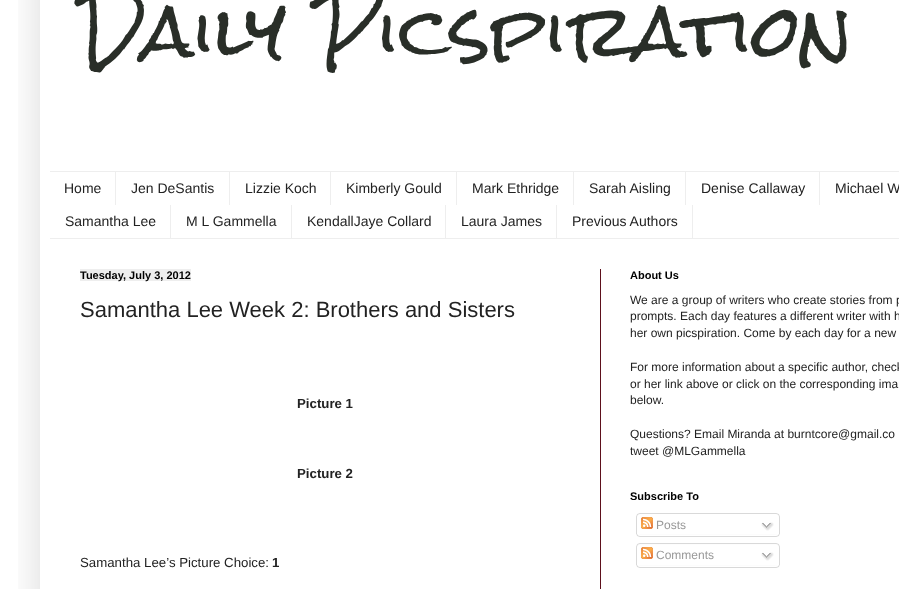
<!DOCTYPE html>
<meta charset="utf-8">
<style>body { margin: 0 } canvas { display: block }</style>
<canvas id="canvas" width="899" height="589"></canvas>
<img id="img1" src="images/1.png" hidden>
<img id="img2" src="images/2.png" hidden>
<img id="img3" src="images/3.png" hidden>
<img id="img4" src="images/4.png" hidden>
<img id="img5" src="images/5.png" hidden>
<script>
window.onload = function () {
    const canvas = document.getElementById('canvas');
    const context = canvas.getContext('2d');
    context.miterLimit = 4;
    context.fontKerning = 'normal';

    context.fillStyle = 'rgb(255, 255, 255)';
    context.fillRect(0, 0, 899, 589);
    context.save();
    context.beginPath();
    context.rect(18, 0, 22, 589);
    context.clip();
    context.fillStyle = 'rgba(0, 0, 0, 0.15)';
    context.filter = 'blur(20px)';
    context.beginPath();
    context.rect(40, -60, 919, 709);
    context.fill();
    context.filter = 'none';
    context.restore();
    context.fillStyle = 'rgb(238, 238, 238)';
    context.fillRect(50, 171, 849, 1);
    context.fillRect(50, 238, 849, 1);
    context.fillRect(115, 172, 1, 33);
    context.fillRect(229, 172, 1, 33);
    context.fillRect(330, 172, 1, 33);
    context.fillRect(456, 172, 1, 33);
    context.fillRect(573, 172, 1, 33);
    context.fillRect(685, 172, 1, 33);
    context.fillRect(819, 172, 1, 33);
    context.fillRect(170, 205, 1, 33);
    context.fillRect(291, 205, 1, 33);
    context.fillRect(445, 205, 1, 33);
    context.fillRect(556, 205, 1, 33);
    context.fillRect(692, 205, 1, 33);
    context.fillStyle = 'rgb(93, 16, 28)';
    context.fillRect(600, 269, 1, 320);
    context.fillStyle = 'rgb(238, 238, 238)';
    context.fillRect(80, 269, 111, 12);
    context.drawImage(document.getElementById('img1'), 636, 513, 144, 21);
    context.drawImage(document.getElementById('img2'), 641, 517, 12, 12);
    context.drawImage(document.getElementById('img3'), 761, 522, 13, 9);
    context.drawImage(document.getElementById('img4'), 636, 534, 144, 3);
    context.drawImage(document.getElementById('img5'), 636, 543, 144, 22);
    context.drawImage(document.getElementById('img2'), 641, 547, 12, 12);
    context.drawImage(document.getElementById('img3'), 761, 552, 13, 9);
    context.drawImage(document.getElementById('img4'), 636, 565, 144, 3);
    context.font = '70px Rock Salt';
    context.fillStyle = 'rgb(41, 46, 40)';
    context.fillText('Daily Picspiration', 80, 59);
    context.font = '14px Liberation Sans';
    context.fillStyle = 'rgb(34, 34, 34)';
    context.fillText('Home', 64, 193);
    context.fillText('Jen DeSantis', 131, 193);
    context.fillText('Lizzie Koch', 245, 193);
    context.fillText('Kimberly Gould', 346, 193);
    context.fillText('Mark Ethridge', 472, 193);
    context.fillText('Sarah Aisling', 589, 193);
    context.fillText('Denise Callaway', 701, 193);
    context.fillText('Michael W', 835, 193);
    context.fillText('Samantha Lee', 65, 226);
    context.fillText('M L Gammella', 186, 226);
    context.fillText('KendallJaye Collard', 307, 226);
    context.fillText('Laura James', 461, 226);
    context.fillText('Previous Authors', 572, 226);
    context.font = 'bold 11px Liberation Sans';
    context.fillStyle = 'rgb(0, 0, 0)';
    context.fillText('Tuesday, July 3, 2012', 80, 279);
    context.font = '22px Liberation Sans';
    context.fillStyle = 'rgb(34, 34, 34)';
    context.fillText('Samantha Lee Week 2: Brothers and Sisters', 80, 317);
    context.font = 'bold 13.25px Liberation Sans';
    context.fillText('Picture 1', 297, 408);
    context.fillText('Picture 2', 297, 478);
    context.font = '13.25px Liberation Sans';
    context.fillText('Samantha Lee’s Picture Choice:', 80, 567);
    context.font = 'bold 13.25px Liberation Sans';
    context.fillText('1', 272, 567);
    context.font = 'bold 11px Liberation Sans';
    context.fillStyle = 'rgb(0, 0, 0)';
    context.fillText('About Us', 630, 279);
    context.font = '12px Liberation Sans';
    context.fillStyle = 'rgb(34, 34, 34)';
    context.fillText('We are a group of writers who create stories from p', 630, 304);
    context.fillText('prompts. Each day features a different writer with h', 630, 320);
    context.fillText('her own picspiration. Come by each day for a new', 630, 337);
    context.fillText('For more information about a specific author, check', 630, 371);
    context.fillText('or her link above or click on the corresponding ima', 630, 388);
    context.fillText('below.', 630, 404);
    context.fillText('Questions? Email Miranda at burntcore@gmail.co', 630, 438);
    context.fillText('tweet @MLGammella', 630, 455);
    context.font = 'bold 11px Liberation Sans';
    context.fillStyle = 'rgb(0, 0, 0)';
    context.fillText('Subscribe To', 630, 500);
    context.font = '12px Liberation Sans';
    context.fillStyle = 'rgb(153, 153, 153)';
    context.fillText('Posts', 656, 529);
    context.fillText('Comments', 656, 559);
};
</script>
